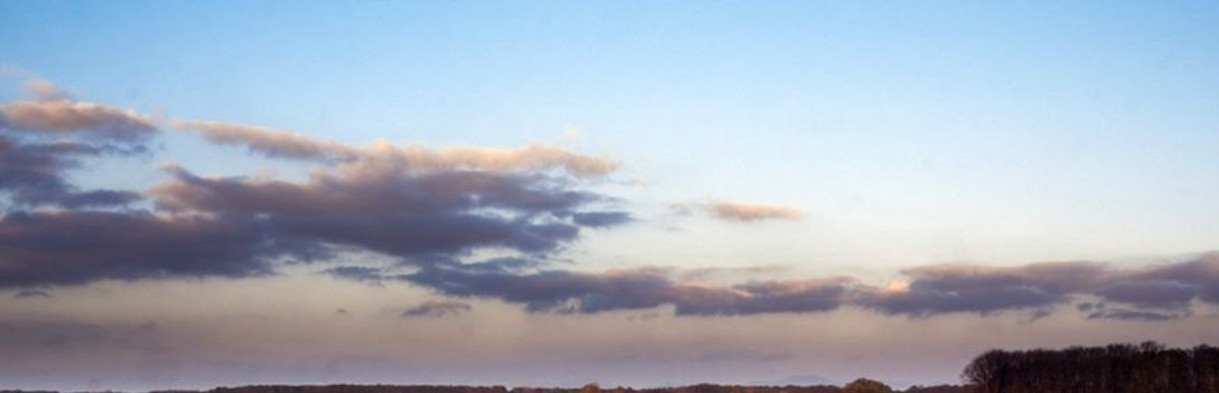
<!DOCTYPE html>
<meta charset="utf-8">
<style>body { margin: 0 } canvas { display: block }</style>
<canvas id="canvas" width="1219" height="393"></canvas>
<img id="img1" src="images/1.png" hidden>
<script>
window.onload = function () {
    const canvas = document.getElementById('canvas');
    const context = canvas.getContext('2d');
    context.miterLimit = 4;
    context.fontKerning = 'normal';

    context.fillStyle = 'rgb(255, 255, 255)';
    context.fillRect(0, 0, 1219, 393);
    context.drawImage(document.getElementById('img1'), 0, 0, 1219, 393);
};
</script>
